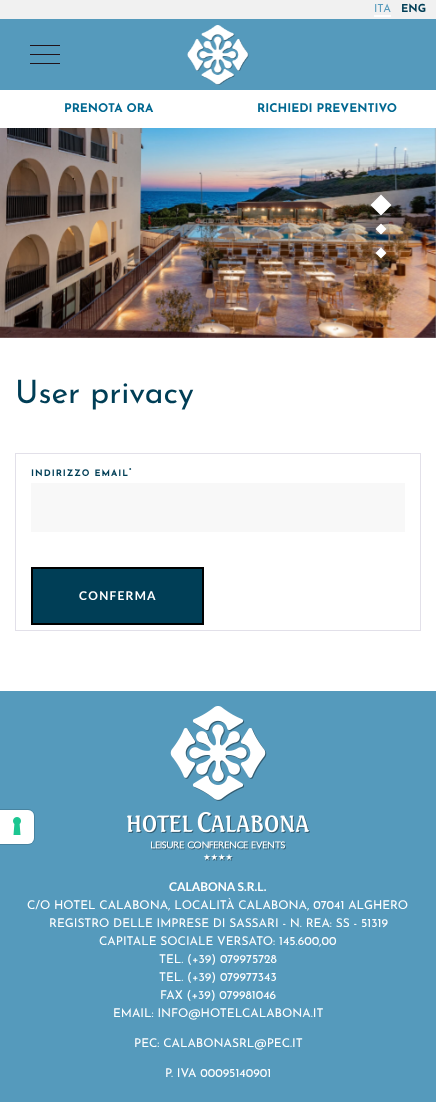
<!DOCTYPE html>
<meta charset="utf-8">
<style>body { margin: 0 } canvas { display: block }</style>
<canvas id="canvas" width="436" height="1102"></canvas>
<img id="img1" src="images/1.png" hidden>
<img id="img2" src="images/2.png" hidden>
<img id="img3" src="images/3.png" hidden>
<img id="img4" src="images/4.png" hidden>
<script>
window.onload = function () {
    const canvas = document.getElementById('canvas');
    const context = canvas.getContext('2d');
    context.miterLimit = 4;
    context.fontKerning = 'normal';

    context.fillStyle = 'rgb(255, 255, 255)';
    context.fillRect(0, 0, 436, 1102);
    context.fillStyle = 'rgb(85, 154, 188)';
    context.fillRect(0, 691, 436, 411);
    context.beginPath();
    context.moveTo(-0.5, 809.5);
    context.lineTo(28, 809.5);
    context.bezierCurveTo(31.5, 809.5, 34.5, 812.5, 34.5, 816);
    context.lineTo(34.5, 838);
    context.bezierCurveTo(34.5, 841.5, 31.5, 844.5, 28, 844.5);
    context.lineTo(-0.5, 844.5);
    context.closePath();
    context.strokeStyle = 'rgb(72, 131, 160)';
    context.stroke();
    context.fillStyle = 'rgb(255, 255, 255)';
    context.beginPath();
    context.roundRect(0, 810, 34, 34, [0, 6, 6, 0]);
    context.fill();
    context.drawImage(document.getElementById('img1'), 13, 817, 8, 18);
    context.fillStyle = 'rgb(85, 154, 188)';
    context.fillRect(0, 19, 436, 71);
    context.fillStyle = 'rgb(241, 241, 241)';
    context.fillRect(0, 0, 436, 19);
    context.fillStyle = 'rgb(255, 255, 255)';
    context.fillRect(374, 15, 17, 2);
    context.fillStyle = 'rgb(32, 18, 24)';
    context.fillRect(30, 45, 30, 1);
    context.fillRect(30, 54, 30, 1);
    context.fillRect(30, 63, 30, 1);
    context.drawImage(document.getElementById('img2'), 187, 25, 62, 60);
    context.drawImage(document.getElementById('img3'), 0, 128, 436, 210);
    context.fillStyle = 'rgb(255, 255, 255)';
    context.beginPath();
    context.moveTo(370.5, 205);
    context.lineTo(381, 194.5);
    context.lineTo(391.5, 205);
    context.lineTo(381, 215.5);
    context.closePath();
    context.moveTo(381, 223.5);
    context.lineTo(386.5, 229);
    context.lineTo(381, 234.5);
    context.lineTo(375.5, 229);
    context.closePath();
    context.fill();
    context.beginPath();
    context.moveTo(381, 247.5);
    context.lineTo(386.5, 253);
    context.lineTo(381, 258.5);
    context.lineTo(375.5, 253);
    context.closePath();
    context.fill();
    context.strokeStyle = 'rgb(226, 224, 233)';
    context.strokeRect(15.5, 453.5, 405, 177);
    context.fillStyle = 'rgb(248, 248, 248)';
    context.fillRect(31, 483, 374, 49);
    context.fillStyle = 'rgb(0, 62, 86)';
    context.beginPath();
    context.rect(32, 568, 171, 56);
    context.fill();
    context.strokeStyle = 'rgb(0, 0, 0)';
    context.lineWidth = 2;
    context.stroke();
    context.drawImage(document.getElementById('img4'), 127, 706, 183, 155);
    context.font = '11px Josefin Sans';
    context.fillStyle = 'rgb(86, 154, 188)';
    context.fillText('ITA', 374, 12);
    context.font = 'bold 11px Josefin Sans';
    context.fillStyle = 'rgb(0, 62, 86)';
    context.fillText('ENG', 401, 12);
    context.font = 'bold 12px Josefin Sans';
    context.fillStyle = 'rgb(0, 104, 145)';
    context.fillText('PRENOTA ORA', 64, 112);
    context.fillText('RICHIEDI PREVENTIVO', 257, 112);
    context.font = '32px Josefin Sans';
    context.fillStyle = 'rgb(0, 62, 86)';
    context.fillText('User privacy', 15, 403);
    context.letterSpacing = '1px';
    context.font = 'bold 9px Josefin Sans';
    context.fillText('INDIRIZZO EMAIL', 31, 476);
    context.font = 'bold 7px Josefin Sans';
    context.fillText('*', 129, 473);
    context.letterSpacing = '1.25px';
    context.font = 'bold 12px Lato';
    context.fillStyle = 'rgb(255, 255, 255)';
    context.fillText('CONFERMA', 79, 600);
    context.letterSpacing = '0px';
    context.fillText('CALABONA S.R.L.', 169, 891);
    context.font = '12px Josefin Sans';
    context.fillText('C/O HOTEL CALABONA, LOCALITÀ CALABONA, 07041 ALGHERO', 27, 909);
    context.fillText('REGISTRO DELLE IMPRESE DI SASSARI - N. REA: SS - 51319', 49, 927);
    context.fillText('CAPITALE SOCIALE VERSATO: 145.600,00', 99, 945);
    context.fillText('TEL. (+39) 079975728', 159, 963);
    context.fillText('TEL. (+39) 079977343', 159, 981);
    context.fillText('FAX (+39) 079981046', 160, 999);
    context.fillText('EMAIL: INFO@HOTELCALABONA.IT', 113, 1017);
    context.fillText('PEC: CALABONASRL@PEC.IT', 134, 1047);
    context.fillText('P. IVA 00095140901', 165, 1077);
};
</script>
